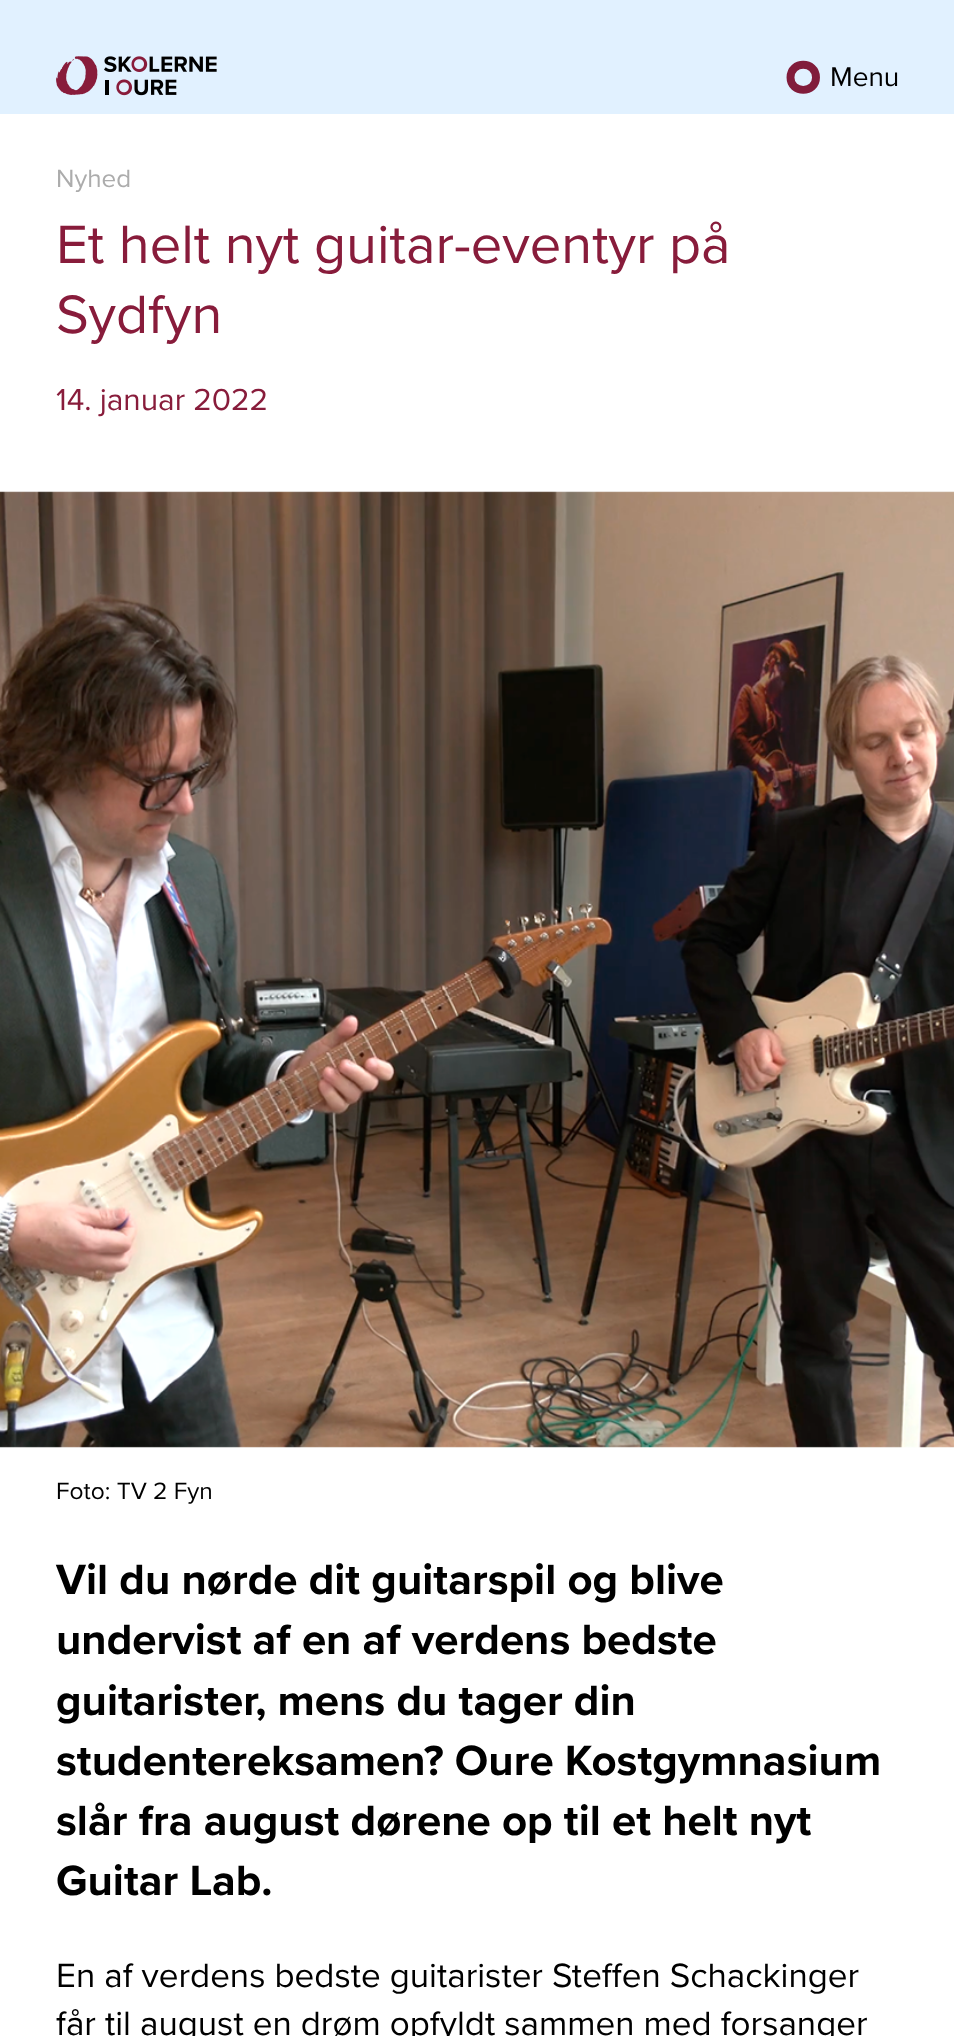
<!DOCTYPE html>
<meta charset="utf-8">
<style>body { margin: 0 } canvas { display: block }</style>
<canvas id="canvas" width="954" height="2036"></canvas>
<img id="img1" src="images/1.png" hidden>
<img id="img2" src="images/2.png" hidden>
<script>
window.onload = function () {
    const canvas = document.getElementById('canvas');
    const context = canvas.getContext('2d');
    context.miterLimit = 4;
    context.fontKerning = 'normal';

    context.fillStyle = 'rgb(255, 255, 255)';
    context.fillRect(0, 0, 954, 2036);
    context.fillStyle = 'rgb(225, 241, 255)';
    context.fillRect(0, 0, 954, 114);
    context.drawImage(document.getElementById('img1'), 56, 56, 161, 40);
    context.beginPath();
    context.moveTo(790.5, 77.5);
    context.bezierCurveTo(790.5, 94, 816, 94, 816, 77.5);
    context.bezierCurveTo(816, 60.5, 790.5, 60.5, 790.5, 77.5);
    context.strokeStyle = 'rgb(129, 28, 59)';
    context.lineWidth = 7.9;
    context.stroke();
    context.drawImage(document.getElementById('img2'), 0, 491, 954, 957);
    context.font = '28px Proxima Nova';
    context.fillStyle = 'rgb(0, 0, 0)';
    context.fillText('Menu', 830, 86);
    context.font = '26px Proxima Nova';
    context.fillStyle = 'rgb(172, 172, 172)';
    context.fillText('Nyhed', 56, 187);
    context.font = '56px Proxima Nova';
    context.fillStyle = 'rgb(136, 28, 59)';
    context.fillText('Et helt nyt guitar-eventyr på', 56, 263);
    context.fillText('Sydfyn', 56, 333);
    context.font = '31.5px Proxima Nova';
    context.fillText('14. januar 2022', 56, 410);
    context.font = '24.5px Proxima Nova';
    context.fillStyle = 'rgb(0, 0, 0)';
    context.fillText('Foto: TV 2 Fyn', 56, 1499);
    context.font = 'bold 43.75px Proxima Nova';
    context.fillText('Vil du nørde dit guitarspil og blive', 56, 1594);
    context.fillText('undervist af en af verdens bedste', 56, 1654);
    context.fillText('guitarister, mens du tager din', 56, 1715);
    context.fillText('studentereksamen? Oure Kostgymnasium', 56, 1775);
    context.fillText('slår fra august dørene op til et helt nyt', 56, 1835);
    context.fillText('Guitar Lab.', 56, 1895);
    context.font = '35px Proxima Nova';
    context.fillText('En af verdens bedste guitarister Steffen Schackinger', 56, 1987);
    context.fillText('får til august en drøm opfyldt sammen med forsanger', 56, 2035);
};
</script>
